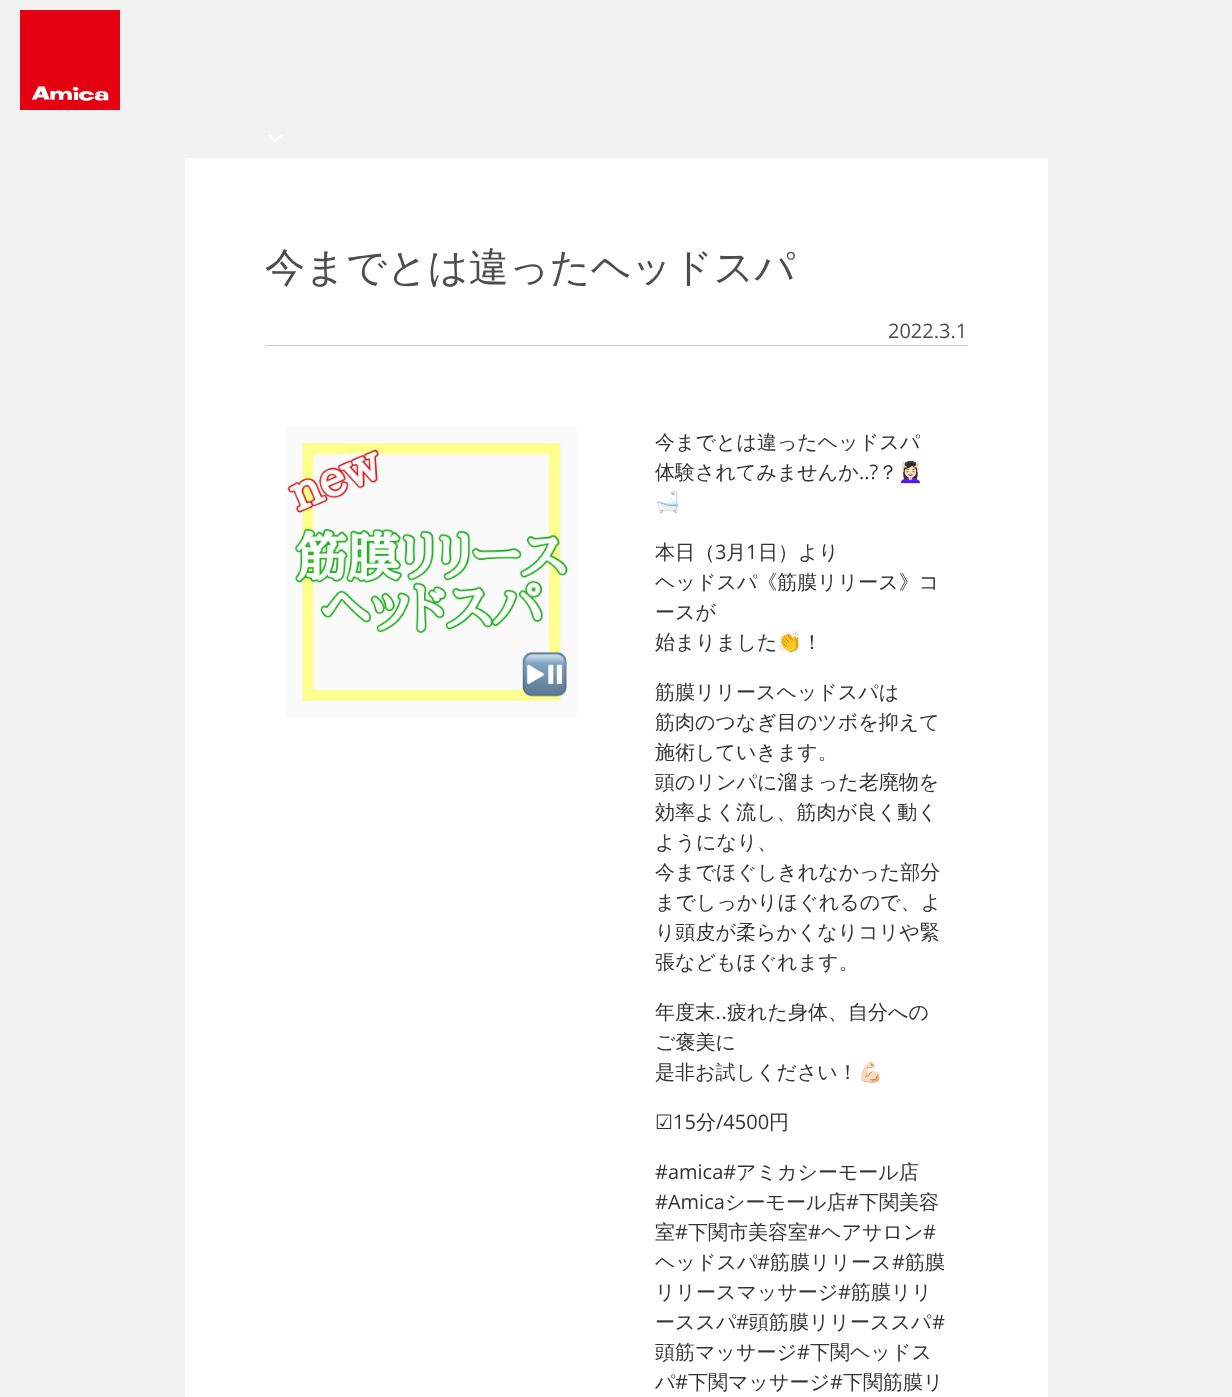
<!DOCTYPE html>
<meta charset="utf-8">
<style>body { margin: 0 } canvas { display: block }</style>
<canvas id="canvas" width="1232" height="1397"></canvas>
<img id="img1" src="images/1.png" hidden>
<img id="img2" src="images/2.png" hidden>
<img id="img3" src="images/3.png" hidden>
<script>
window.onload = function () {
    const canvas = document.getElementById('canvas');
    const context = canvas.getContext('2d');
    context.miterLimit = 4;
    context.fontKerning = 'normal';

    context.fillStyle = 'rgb(242, 242, 242)';
    context.fillRect(0, 0, 1232, 1397);
    context.drawImage(document.getElementById('img1'), 20, 10, 100, 100);
    context.drawImage(document.getElementById('img2'), 268, 135, 14, 7);
    context.fillStyle = 'rgb(255, 255, 255)';
    context.fillRect(185, 158, 863, 1239);
    context.fillStyle = 'rgb(200, 200, 200)';
    context.fillRect(265, 345, 703, 1);
    context.drawImage(document.getElementById('img3'), 285, 426, 292, 292);
    context.font = '500 40px WenQuanYi Zen Hei';
    context.fillStyle = 'rgb(77, 77, 77)';
    context.fillText('今までとは違ったヘッドスパ', 265, 281);
    context.font = '20px Open Sans';
    context.fillText('2022.3.1', 888, 338);
    context.font = '500 20px WenQuanYi Zen Hei';
    context.fillStyle = 'rgb(51, 51, 51)';
    context.fillText('今までとは違ったヘッドスパ', 655, 449);
    context.fillText('体験されてみませんか', 655, 479);
    context.font = '20px Open Sans';
    context.fillText('..?', 859, 479);
    context.font = '500 20px WenQuanYi Zen Hei';
    context.fillText('？', 878, 479);
    context.font = '20px Noto Color Emoji';
    context.fillText('💆🏻‍♀️', 898, 479);
    context.fillText('🛁', 655, 509);
    context.font = '500 20px WenQuanYi Zen Hei';
    context.fillText('本日（', 655, 559);
    context.font = '20px Open Sans';
    context.fillText('3', 715, 559);
    context.font = '500 20px WenQuanYi Zen Hei';
    context.fillText('月', 726, 559);
    context.font = '20px Open Sans';
    context.fillText('1', 746, 559);
    context.font = '500 20px WenQuanYi Zen Hei';
    context.fillText('日）より', 758, 559);
    context.fillText('ヘッドスパ《筋膜リリース》コ', 655, 589);
    context.fillText('ースが', 655, 619);
    context.fillText('始まりました', 655, 649);
    context.font = '20px "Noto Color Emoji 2"';
    context.fillText('👏', 777, 649);
    context.font = '500 20px WenQuanYi Zen Hei';
    context.fillText('！', 802, 649);
    context.fillText('筋膜リリースヘッドスパは', 655, 699);
    context.fillText('筋肉のつなぎ目のツボを抑えて', 655, 729);
    context.fillText('施術していきます。', 655, 759);
    context.fillText('頭のリンパに溜まった老廃物を', 655, 789);
    context.fillText('効率よく流し、筋肉が良く動く', 655, 819);
    context.fillText('ようになり、', 655, 849);
    context.fillText('今までほぐしきれなかった部分', 655, 879);
    context.fillText('までしっかりほぐれるので、よ', 655, 909);
    context.fillText('り頭皮が柔らかくなりコリや緊', 655, 939);
    context.fillText('張などもほぐれます。', 655, 969);
    context.fillText('年度末..疲れた身体、自分への', 655, 1019);
    context.fillText('ご褒美に', 655, 1049);
    context.fillText('是非お試しください！', 655, 1079);
    context.font = '20px "Noto Color Emoji 2"';
    context.fillText('💪🏻', 858, 1079);
    context.font = '20px DejaVu Sans';
    context.fillText('☑︎', 655, 1129);
    context.font = '20px Open Sans';
    context.fillText('15', 673, 1129);
    context.font = '500 20px WenQuanYi Zen Hei';
    context.fillText('分', 696, 1129);
    context.font = '20px Open Sans';
    context.fillText('/4500', 716, 1129);
    context.font = '500 20px WenQuanYi Zen Hei';
    context.fillText('円', 769, 1129);
    context.font = '20px Open Sans';
    context.fillText('#amica#', 655, 1179);
    context.font = '500 20px WenQuanYi Zen Hei';
    context.fillText('アミカシーモール店', 736, 1179);
    context.font = '20px Open Sans';
    context.fillText('#Amica', 655, 1209);
    context.font = '500 20px WenQuanYi Zen Hei';
    context.fillText('シーモール店', 725, 1209);
    context.font = '20px Open Sans';
    context.fillText('#', 846, 1209);
    context.font = '500 20px WenQuanYi Zen Hei';
    context.fillText('下関美容', 859, 1209);
    context.fillText('室', 655, 1239);
    context.font = '20px Open Sans';
    context.fillText('#', 675, 1239);
    context.font = '500 20px WenQuanYi Zen Hei';
    context.fillText('下関市美容室', 688, 1239);
    context.font = '20px Open Sans';
    context.fillText('#', 808, 1239);
    context.font = '500 20px WenQuanYi Zen Hei';
    context.fillText('ヘアサロン', 821, 1239);
    context.font = '20px Open Sans';
    context.fillText('#', 923, 1239);
    context.font = '500 20px WenQuanYi Zen Hei';
    context.fillText('ヘッドスパ', 655, 1269);
    context.font = '20px Open Sans';
    context.fillText('#', 757, 1269);
    context.font = '500 20px WenQuanYi Zen Hei';
    context.fillText('筋膜リリース', 770, 1269);
    context.font = '20px Open Sans';
    context.fillText('#', 892, 1269);
    context.font = '500 20px WenQuanYi Zen Hei';
    context.fillText('筋膜', 905, 1269);
    context.fillText('リリースマッサージ', 655, 1299);
    context.font = '20px Open Sans';
    context.fillText('#', 838, 1299);
    context.font = '500 20px WenQuanYi Zen Hei';
    context.fillText('筋膜リリ', 851, 1299);
    context.fillText('ーススパ', 655, 1329);
    context.font = '20px Open Sans';
    context.fillText('#', 736, 1329);
    context.font = '500 20px WenQuanYi Zen Hei';
    context.fillText('頭筋膜リリーススパ', 749, 1329);
    context.font = '20px Open Sans';
    context.fillText('#', 932, 1329);
    context.font = '500 20px WenQuanYi Zen Hei';
    context.fillText('頭筋マッサージ', 655, 1359);
    context.font = '20px Open Sans';
    context.fillText('#', 797, 1359);
    context.font = '500 20px WenQuanYi Zen Hei';
    context.fillText('下関ヘッドス', 810, 1359);
    context.fillText('パ', 655, 1389);
    context.font = '20px Open Sans';
    context.fillText('#', 675, 1389);
    context.font = '500 20px WenQuanYi Zen Hei';
    context.fillText('下関マッサージ', 688, 1389);
    context.font = '20px Open Sans';
    context.fillText('#', 830, 1389);
    context.font = '500 20px WenQuanYi Zen Hei';
    context.fillText('下関筋膜リ', 843, 1389);
};
</script>
